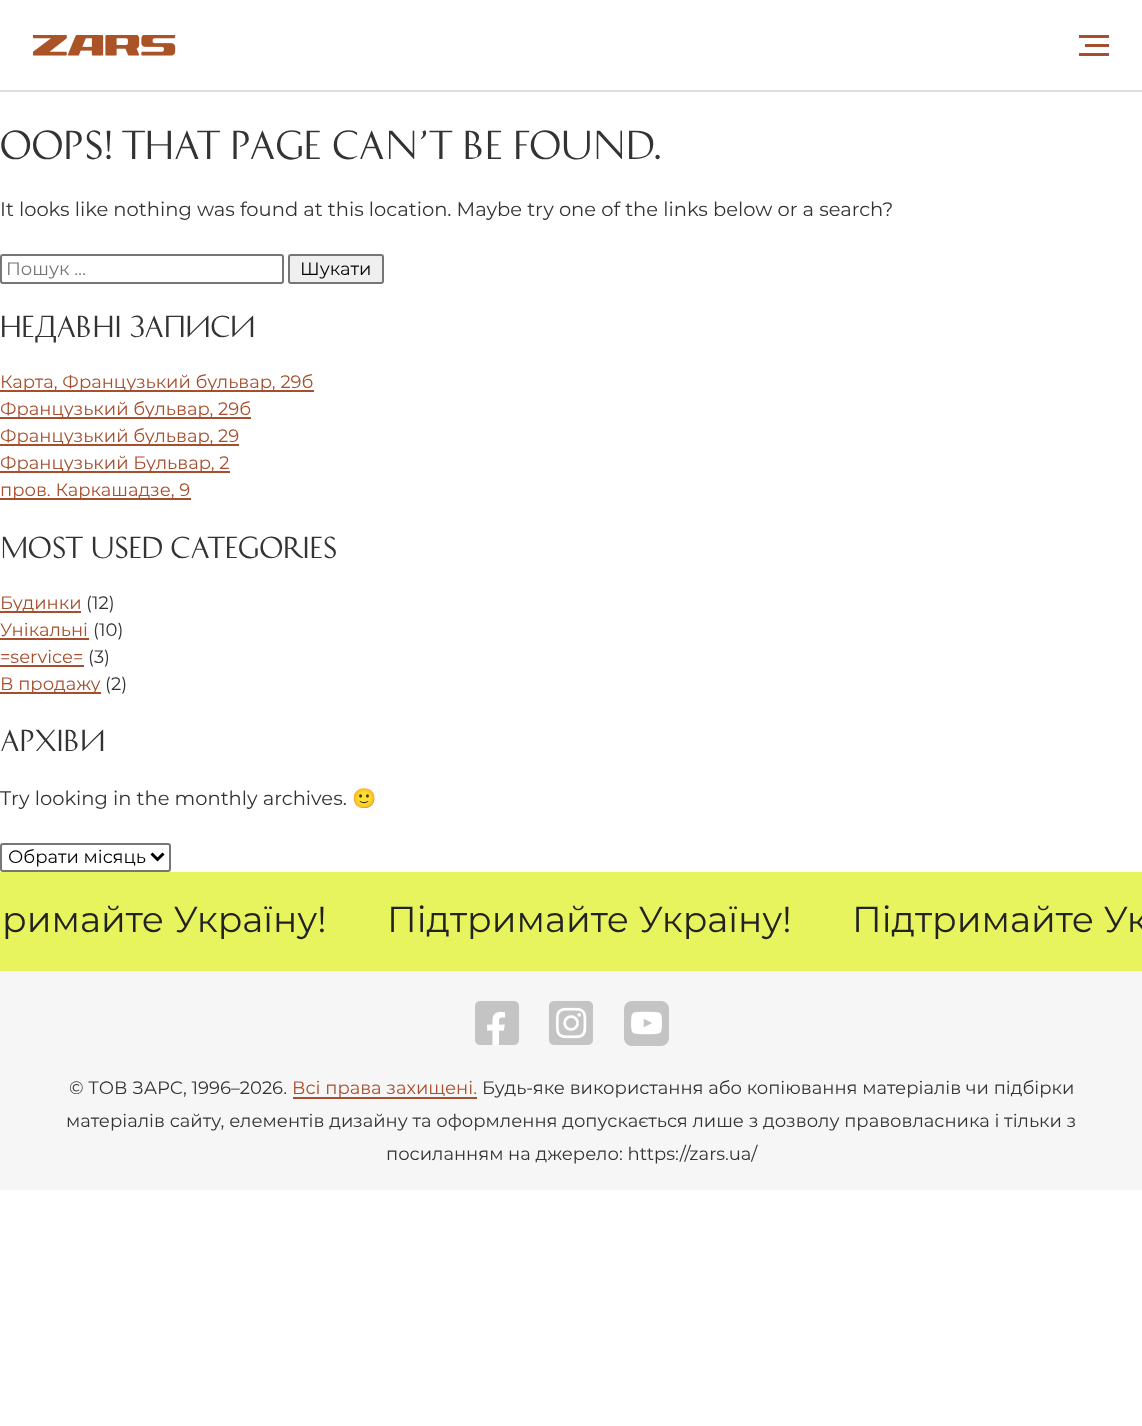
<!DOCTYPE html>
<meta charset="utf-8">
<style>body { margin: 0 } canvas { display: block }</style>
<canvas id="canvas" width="1142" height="1426"></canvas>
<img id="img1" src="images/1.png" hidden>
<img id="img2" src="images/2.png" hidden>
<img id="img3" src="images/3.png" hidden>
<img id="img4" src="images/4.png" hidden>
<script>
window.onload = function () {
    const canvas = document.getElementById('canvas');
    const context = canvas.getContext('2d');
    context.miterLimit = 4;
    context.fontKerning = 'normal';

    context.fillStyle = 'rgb(255, 255, 255)';
    context.fillRect(0, 0, 1142, 1426);
    context.fillStyle = 'rgb(222, 222, 222)';
    context.fillRect(0, 90, 1142, 2);
    context.drawImage(document.getElementById('img1'), 33, 35, 143, 21);
    context.fillStyle = 'rgb(166, 78, 45)';
    context.fillRect(1079, 35, 30, 3);
    context.fillRect(1085, 44, 24, 3);
    context.fillRect(1079, 53, 30, 3);
    context.beginPath();
    context.roundRect(1, 255, 282, 28, 2);
    context.strokeStyle = 'rgb(118, 118, 118)';
    context.lineWidth = 2;
    context.stroke();
    context.fillStyle = 'rgb(239, 239, 239)';
    context.beginPath();
    context.roundRect(289, 255, 94, 28, 2);
    context.fill();
    context.stroke();
    context.fillStyle = 'rgb(166, 78, 45)';
    context.fillRect(0, 390, 314, 2);
    context.fillRect(0, 417, 251, 2);
    context.fillRect(0, 444, 239, 2);
    context.fillRect(0, 471, 230, 2);
    context.fillRect(0, 498, 191, 2);
    context.fillRect(0, 611, 81, 2);
    context.fillRect(0, 638, 89, 2);
    context.fillRect(0, 665, 84, 2);
    context.fillRect(0, 692, 101, 2);
    context.beginPath();
    context.roundRect(1, 844, 169, 27, 2);
    context.stroke();
    context.beginPath();
    context.moveTo(151.5, 853.5);
    context.lineTo(157.5, 859.5);
    context.lineTo(163.5, 853.5);
    context.strokeStyle = 'rgb(0, 0, 0)';
    context.lineWidth = 3;
    context.stroke();
    context.fillStyle = 'rgb(232, 244, 94)';
    context.fillRect(0, 872, 1142, 99);
    context.fillStyle = 'rgb(246, 246, 246)';
    context.fillRect(0, 971, 1142, 219);
    context.drawImage(document.getElementById('img2'), 475, 1001, 44, 44);
    context.drawImage(document.getElementById('img3'), 549, 1001, 44, 44);
    context.drawImage(document.getElementById('img4'), 624, 1001, 45, 45);
    context.fillStyle = 'rgb(166, 78, 45)';
    context.fillRect(293, 1097, 184, 2);
    context.font = '36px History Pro';
    context.fillStyle = 'rgb(51, 51, 51)';
    context.fillText('OOPS! THAT PAGE CAN’T BE FOUND.', 0, 159);
    context.font = '19.5px Montserrat';
    context.fillText('It looks like nothing was found at this location. Maybe try one of the links below or a search?', 0, 216);
    context.font = '18px Montserrat';
    context.fillStyle = 'rgb(117, 117, 117)';
    context.fillText('Пошук …', 6, 275);
    context.fillStyle = 'rgb(0, 0, 0)';
    context.fillText('Шукати', 300, 275);
    context.font = '27px History Pro';
    context.fillStyle = 'rgb(51, 51, 51)';
    context.fillText('НЕДАВНІ ЗАПИСИ', 0, 337);
    context.font = '18px Montserrat';
    context.fillStyle = 'rgb(166, 78, 45)';
    context.fillText('Карта, Французький бульвар, 29б', 0, 388);
    context.fillText('Французький бульвар, 29б', 0, 415);
    context.fillText('Французький бульвар, 29', 0, 442);
    context.fillText('Французький Бульвар, 2', 0, 469);
    context.fillText('пров. Каркашадзе, 9', 0, 496);
    context.font = '27px History Pro';
    context.fillStyle = 'rgb(51, 51, 51)';
    context.fillText('MOST USED CATEGORIES', 0, 558);
    context.font = '18px Montserrat';
    context.fillStyle = 'rgb(166, 78, 45)';
    context.fillText('Будинки', 0, 609);
    context.fillStyle = 'rgb(51, 51, 51)';
    context.fillText('(12)', 86, 609);
    context.fillStyle = 'rgb(166, 78, 45)';
    context.fillText('Унікальні', 0, 636);
    context.fillStyle = 'rgb(51, 51, 51)';
    context.fillText('(10)', 93, 636);
    context.fillStyle = 'rgb(166, 78, 45)';
    context.fillText('=service=', 0, 663);
    context.fillStyle = 'rgb(51, 51, 51)';
    context.fillText('(3)', 88, 663);
    context.fillStyle = 'rgb(166, 78, 45)';
    context.fillText('В продажу', 0, 690);
    context.fillStyle = 'rgb(51, 51, 51)';
    context.fillText('(2)', 105, 690);
    context.font = '27px History Pro';
    context.fillText('АРХІВИ', 0, 751);
    context.font = '19.5px Montserrat';
    context.fillText('Try looking in the monthly archives.', 0, 805);
    context.font = '19.5px Noto Color Emoji';
    context.fillText('🙂', 352, 805);
    context.font = '18px Montserrat';
    context.fillStyle = 'rgb(0, 0, 0)';
    context.fillText('Обрати місяць', 8, 863);
    context.font = '36px Montserrat';
    context.fillStyle = 'rgb(34, 34, 34)';
    context.fillText('римайте Україну!', 2, 932);
    context.fillText('Підтримайте Україну!', 387, 932);
    context.fillText('Підтримайте Ук', 852, 932);
    context.font = '18px Montserrat';
    context.fillStyle = 'rgb(51, 51, 51)';
    context.fillText('© ТОВ ЗАРС, 1996–2026.', 69, 1094);
    context.fillStyle = 'rgb(166, 78, 45)';
    context.fillText('Всі права захищені.', 292, 1094);
    context.fillStyle = 'rgb(51, 51, 51)';
    context.fillText('Будь-яке використання або копіювання матеріалів чи підбірки', 482, 1094);
    context.fillText('матеріалів сайту, елементів дизайну та оформлення допускається лише з дозволу правовласника і тільки з', 66, 1127);
    context.fillText('посиланням на джерело: https://zars.ua/', 386, 1160);
};
</script>
